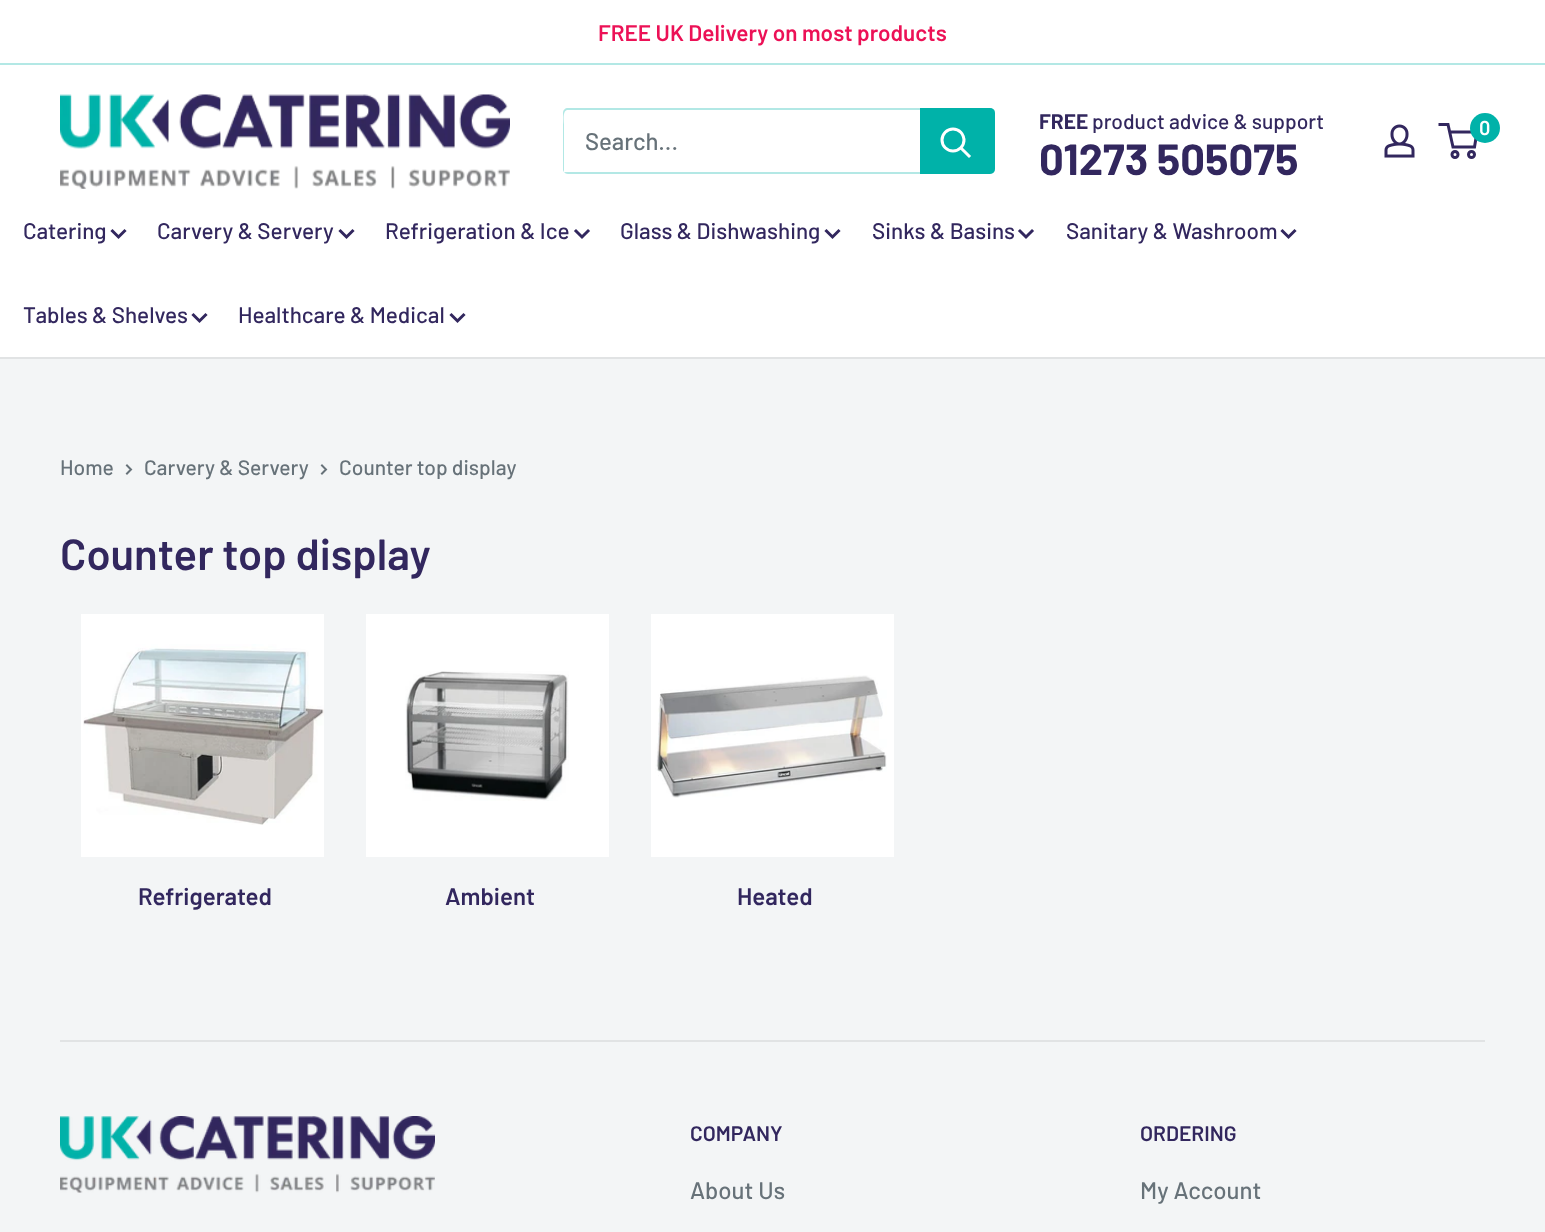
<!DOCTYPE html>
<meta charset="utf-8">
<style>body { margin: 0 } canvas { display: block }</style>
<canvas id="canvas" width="1545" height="1232"></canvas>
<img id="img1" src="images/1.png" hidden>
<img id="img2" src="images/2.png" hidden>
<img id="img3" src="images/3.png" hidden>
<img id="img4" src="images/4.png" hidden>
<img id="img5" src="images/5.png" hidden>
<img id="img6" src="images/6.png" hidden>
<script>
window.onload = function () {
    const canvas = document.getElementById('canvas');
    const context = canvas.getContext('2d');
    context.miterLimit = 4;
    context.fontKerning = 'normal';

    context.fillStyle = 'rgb(243, 245, 246)';
    context.fillRect(0, 0, 1545, 1232);
    context.fillStyle = 'rgb(255, 255, 255)';
    context.fillRect(0, 0, 1545, 63);
    context.fillStyle = 'rgb(179, 232, 229)';
    context.fillRect(0, 63, 1545, 2);
    context.fillStyle = 'rgb(255, 255, 255)';
    context.fillRect(0, 65, 1545, 292);
    context.drawImage(document.getElementById('img1'), 60, 94, 450, 95);
    context.drawImage(document.getElementById('img2'), 1384, 124, 31, 34);
    context.beginPath();
    context.arc(1455, 154.5, 3, 0, 2 * Math.PI);
    context.strokeStyle = 'rgb(50, 39, 94)';
    context.lineWidth = 3;
    context.stroke();
    context.beginPath();
    context.arc(1471.5, 154.5, 3, 0, 2 * Math.PI);
    context.stroke();
    context.beginPath();
    context.moveTo(1449.5, 132);
    context.lineTo(1477, 132);
    context.lineTo(1474.5, 147);
    context.lineTo(1453, 147);
    context.lineTo(1448, 124.5);
    context.lineTo(1438.5, 124.5);
    context.stroke();
    context.fillStyle = 'rgb(0, 178, 169)';
    context.beginPath();
    context.arc(1485, 128, 15, 0, 2 * Math.PI);
    context.fill();
    context.fillStyle = 'rgb(179, 232, 229)';
    context.beginPath();
    context.moveTo(564, 172);
    context.bezierCurveTo(565, 173, 566, 174, 568, 174);
    context.lineTo(990, 174);
    context.bezierCurveTo(993, 174, 995, 172, 995, 169);
    context.lineTo(995, 113);
    context.bezierCurveTo(995, 111, 994, 109, 992, 109);
    context.lineTo(993, 111);
    context.lineTo(993, 168);
    context.bezierCurveTo(993, 170, 991, 172, 988, 172);
    context.lineTo(566, 172);
    context.closePath();
    context.fill();
    context.fillStyle = 'rgba(0, 178, 169, 0.3)';
    context.beginPath();
    context.moveTo(568, 110);
    context.lineTo(992, 110);
    context.lineTo(995, 111);
    context.bezierCurveTo(994, 109, 992, 108, 990, 108);
    context.lineTo(568, 108);
    context.bezierCurveTo(565, 108, 563, 110, 563, 113);
    context.lineTo(563, 169);
    context.bezierCurveTo(563, 170, 563, 171, 564, 172);
    context.lineTo(564, 124);
    context.bezierCurveTo(564, 121, 562, 110, 568, 110);
    context.closePath();
    context.fill();
    context.fillStyle = 'rgb(0, 178, 169)';
    context.beginPath();
    context.roundRect(920, 108, 75, 66, [0, 5, 5, 0]);
    context.fill();
    context.beginPath();
    context.moveTo(969, 156);
    context.lineTo(961.5, 148.5);
    context.strokeStyle = 'rgb(255, 255, 255)';
    context.lineCap = 'square';
    context.stroke();
    context.beginPath();
    context.arc(953, 140, 11, 0, 2 * Math.PI);
    context.stroke();
    context.fillStyle = 'rgb(225, 227, 228)';
    context.fillRect(0, 357, 1545, 2);
    context.beginPath();
    context.moveTo(124.5, 231);
    context.lineTo(118.5, 237);
    context.lineTo(112.5, 231);
    context.strokeStyle = 'rgb(50, 39, 94)';
    context.stroke();
    context.beginPath();
    context.moveTo(352.5, 231);
    context.lineTo(346.5, 237);
    context.lineTo(340.5, 231);
    context.stroke();
    context.beginPath();
    context.moveTo(588, 231);
    context.lineTo(582, 237);
    context.lineTo(576, 231);
    context.stroke();
    context.beginPath();
    context.moveTo(838.5, 231);
    context.lineTo(832.5, 237);
    context.lineTo(826.5, 231);
    context.stroke();
    context.beginPath();
    context.moveTo(1032, 231);
    context.lineTo(1026, 237);
    context.lineTo(1020, 231);
    context.stroke();
    context.beginPath();
    context.moveTo(1294.5, 231);
    context.lineTo(1288.5, 237);
    context.lineTo(1282.5, 231);
    context.stroke();
    context.beginPath();
    context.moveTo(205.5, 315);
    context.lineTo(199.5, 321);
    context.lineTo(193.5, 315);
    context.stroke();
    context.beginPath();
    context.moveTo(463.5, 315);
    context.lineTo(457.5, 321);
    context.lineTo(451.5, 315);
    context.stroke();
    context.beginPath();
    context.moveTo(127, 465.5);
    context.lineTo(131, 469.5);
    context.lineTo(127, 473.5);
    context.strokeStyle = 'rgb(103, 114, 121)';
    context.lineWidth = 2;
    context.stroke();
    context.beginPath();
    context.moveTo(322, 465.5);
    context.lineTo(326, 469.5);
    context.lineTo(322, 473.5);
    context.stroke();
    context.fillStyle = 'rgb(255, 255, 255)';
    context.fillRect(81, 614, 243, 243);
    context.drawImage(document.getElementById('img3'), 83, 644, 241, 181);
    context.fillRect(366, 614, 243, 243);
    context.drawImage(document.getElementById('img4'), 405, 671, 164, 130);
    context.fillRect(651, 614, 243, 243);
    context.drawImage(document.getElementById('img5'), 655, 675, 232, 123);
    context.fillStyle = 'rgb(225, 227, 228)';
    context.fillRect(60, 1040, 1425, 2);
    context.drawImage(document.getElementById('img6'), 60, 1116, 375, 77);
    context.font = '600 22.5px Barlow';
    context.fillStyle = 'rgb(236, 17, 86)';
    context.fillText('FREE UK Delivery on most products', 598, 41);
    context.font = 'bold 21px Barlow';
    context.fillStyle = 'rgb(50, 39, 94)';
    context.fillText('FREE', 1039, 129);
    context.font = '500 21px Barlow';
    context.fillText('product advice & support', 1092, 129);
    context.font = 'bold 43.5px Barlow';
    context.fillText('01273 505075', 1039, 175);
    context.font = '600 20px Barlow';
    context.fillStyle = 'rgb(255, 255, 255)';
    context.fillText('0', 1479, 135);
    context.font = '500 24px Barlow';
    context.fillStyle = 'rgb(103, 114, 121)';
    context.fillText('Search...', 585, 150);
    context.font = '500 22.5px Barlow';
    context.fillStyle = 'rgb(50, 39, 94)';
    context.fillText('Catering', 23, 239);
    context.fillText('Carvery & Servery', 157, 239);
    context.fillText('Refrigeration & Ice', 385, 239);
    context.fillText('Glass & Dishwashing', 620, 239);
    context.fillText('Sinks & Basins', 872, 239);
    context.fillText('Sanitary & Washroom', 1066, 239);
    context.fillText('Tables & Shelves', 23, 323);
    context.fillText('Healthcare & Medical', 238, 323);
    context.font = '500 21px Barlow';
    context.fillStyle = 'rgb(103, 114, 121)';
    context.fillText('Home', 60, 475);
    context.fillText('Carvery & Servery', 144, 475);
    context.fillText('Counter top display', 339, 475);
    context.font = '600 43.5px Barlow';
    context.fillStyle = 'rgb(50, 39, 94)';
    context.fillText('Counter top display', 60, 570);
    context.font = '600 24px Barlow';
    context.fillText('Refrigerated', 138, 905);
    context.fillText('Ambient', 445, 905);
    context.fillText('Heated', 737, 905);
    context.font = '600 21px Barlow';
    context.fillText('COMPANY', 690, 1141);
    context.font = '500 24px Barlow';
    context.fillStyle = 'rgb(103, 114, 121)';
    context.fillText('About Us', 690, 1199);
    context.font = '600 21px Barlow';
    context.fillStyle = 'rgb(50, 39, 94)';
    context.fillText('ORDERING', 1140, 1141);
    context.font = '500 24px Barlow';
    context.fillStyle = 'rgb(103, 114, 121)';
    context.fillText('My Account', 1140, 1199);
};
</script>
